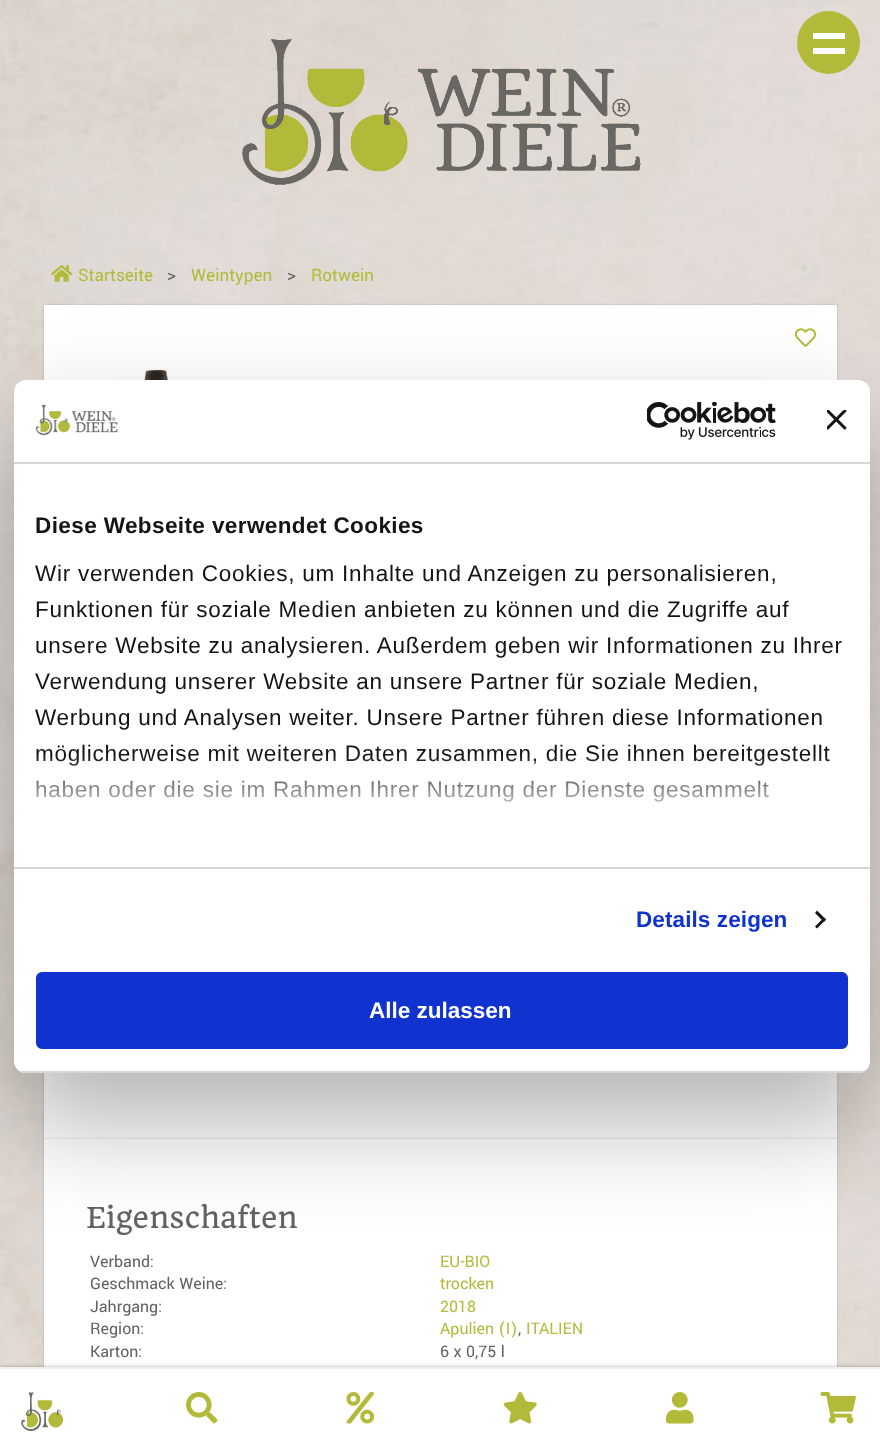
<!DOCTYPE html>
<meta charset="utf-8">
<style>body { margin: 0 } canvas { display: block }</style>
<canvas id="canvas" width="880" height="1450"></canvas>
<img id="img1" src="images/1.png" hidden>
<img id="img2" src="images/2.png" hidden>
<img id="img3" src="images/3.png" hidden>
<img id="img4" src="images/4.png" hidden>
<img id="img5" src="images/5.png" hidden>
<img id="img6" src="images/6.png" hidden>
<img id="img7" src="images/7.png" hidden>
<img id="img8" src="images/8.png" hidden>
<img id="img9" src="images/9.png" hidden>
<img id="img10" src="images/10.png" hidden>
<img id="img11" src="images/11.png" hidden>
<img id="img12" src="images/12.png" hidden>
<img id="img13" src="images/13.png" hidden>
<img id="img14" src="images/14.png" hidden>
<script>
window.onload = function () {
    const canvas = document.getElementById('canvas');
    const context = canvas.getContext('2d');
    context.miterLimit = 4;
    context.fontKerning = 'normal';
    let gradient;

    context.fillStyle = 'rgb(255, 255, 255)';
    context.fillRect(0, 0, 880, 1450);
    context.drawImage(document.getElementById('img1'), 0, 0, 880, 1367);
    context.drawImage(document.getElementById('img2'), 242, 39, 399, 146);
    context.fillStyle = 'rgb(179, 186, 57)';
    context.beginPath();
    context.arc(828.5, 42.5, 31.5, 0, 2 * Math.PI);
    context.fill();
    context.fillStyle = 'rgb(255, 255, 255)';
    context.fillRect(813, 33, 32, 6);
    context.fillRect(813, 48, 32, 6);
    context.drawImage(document.getElementById('img3'), 51, 265, 22, 17);
    context.fillStyle = 'rgba(0, 0, 0, 0.2)';
    context.filter = 'blur(1px)';
    context.beginPath();
    context.rect(44, 305, 793, 471);
    context.fill();
    context.filter = 'none';
    context.fillStyle = 'rgb(255, 255, 255)';
    context.fillRect(44, 305, 793, 75);
    context.drawImage(document.getElementById('img4'), 795, 328, 21, 19);
    context.drawImage(document.getElementById('img5'), 125, 368, 62, 12);
    context.fillStyle = 'rgba(0, 0, 0, 0.2)';
    context.filter = 'blur(1px)';
    context.beginPath();
    context.rect(44, 797, 793, 342);
    context.fill();
    context.filter = 'none';
    context.fillStyle = 'rgb(255, 255, 255)';
    context.fillRect(44, 1073, 793, 66);
    context.fillStyle = 'rgba(0, 0, 0, 0.2)';
    context.filter = 'blur(1px)';
    context.beginPath();
    context.rect(44, 1139, 793, 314);
    context.fill();
    context.filter = 'none';
    context.fillStyle = 'rgb(255, 255, 255)';
    context.fillRect(44, 1139, 793, 228);
    context.fillStyle = 'rgba(0, 0, 0, 0.3)';
    context.filter = 'blur(51px)';
    context.beginPath();
    context.roundRect(14, 428, 856, 693, 12);
    context.fill();
    context.filter = 'none';
    context.fillStyle = 'rgb(255, 255, 255)';
    context.beginPath();
    context.roundRect(14, 380, 856, 693, 12);
    context.fill();
    context.fillStyle = 'rgb(214, 214, 214)';
    context.fillRect(14, 462, 856, 2);
    context.drawImage(document.getElementById('img6'), 35, 404, 84, 32);
    context.drawImage(document.getElementById('img7'), 647, 402, 129, 38);
    context.drawImage(document.getElementById('img8'), 827, 410, 20, 20);
    context.fillRect(14, 867, 856, 2);
    context.fillStyle = 'rgb(20, 20, 20)';
    context.beginPath();
    context.moveTo(817, 910.5);
    context.lineTo(826, 919.5);
    context.lineTo(824, 922);
    context.lineTo(815, 913);
    context.closePath();
    context.fill();
    context.beginPath();
    context.moveTo(824, 917.5);
    context.lineTo(826, 919.5);
    context.lineTo(817, 928.5);
    context.lineTo(815, 926.5);
    context.closePath();
    context.fill();
    context.save();
    context.beginPath();
    context.roundRect(14, 380, 856, 693, 12);
    context.clip();
    context.fillStyle = 'rgb(214, 214, 214)';
    context.fillRect(14, 1071, 856, 2);
    context.restore();
    context.fillStyle = 'rgb(16, 50, 207)';
    context.beginPath();
    context.roundRect(37.5, 973.5, 809, 74, 4.5);
    context.fill();
    context.strokeStyle = 'rgb(16, 50, 207)';
    context.lineWidth = 3;
    context.stroke();
    context.fillStyle = 'rgba(0, 0, 0, 0.3)';
    context.filter = 'blur(2px)';
    context.beginPath();
    context.rect(0, 1367, 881, 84);
    context.fill();
    context.filter = 'none';
    context.fillStyle = 'rgb(255, 255, 255)';
    context.fillRect(0, 1369, 880, 81);
    context.fillStyle = 'rgb(239, 239, 239)';
    context.fillRect(0, 1367, 880, 2);
    context.drawImage(document.getElementById('img9'), 21, 1392, 43, 39);
    context.drawImage(document.getElementById('img10'), 186, 1392, 32, 32);
    context.drawImage(document.getElementById('img11'), 346, 1392, 29, 32);
    context.drawImage(document.getElementById('img12'), 503, 1392, 34, 32);
    context.drawImage(document.getElementById('img13'), 666, 1392, 28, 32);
    context.drawImage(document.getElementById('img14'), 820, 1392, 36, 32);
    context.font = '19px Yantramanav';
    context.fillStyle = 'rgb(179, 186, 57)';
    context.fillText('Startseite', 78, 281);
    context.fillStyle = 'rgb(99, 98, 94)';
    context.fillText('>', 167, 281);
    context.fillStyle = 'rgb(179, 186, 57)';
    context.fillText('Weintypen', 191, 281);
    context.fillStyle = 'rgb(99, 98, 94)';
    context.fillText('>', 287, 281);
    context.fillStyle = 'rgb(179, 186, 57)';
    context.fillText('Rotwein', 311, 281);
    context.font = '28px Quando';
    context.fillStyle = 'rgb(99, 98, 94)';
    context.fillText('Eigenschaften', 86, 1228);
    context.font = '17.75px Yantramanav';
    context.fillText('Verband:', 90, 1267);
    context.fillStyle = 'rgb(179, 186, 57)';
    context.fillText('EU-BIO', 440, 1267);
    context.fillStyle = 'rgb(99, 98, 94)';
    context.fillText('Geschmack Weine:', 90, 1289);
    context.fillStyle = 'rgb(179, 186, 57)';
    context.fillText('trocken', 440, 1289);
    context.fillStyle = 'rgb(99, 98, 94)';
    context.fillText('Jahrgang:', 90, 1312);
    context.fillStyle = 'rgb(179, 186, 57)';
    context.fillText('2018', 440, 1312);
    context.fillStyle = 'rgb(99, 98, 94)';
    context.fillText('Region:', 90, 1334);
    context.fillStyle = 'rgb(179, 186, 57)';
    context.fillText('Apulien (I)', 440, 1334);
    context.fillText('ITALIEN', 526, 1334);
    context.fillStyle = 'rgb(99, 98, 94)';
    context.fillText(',', 518, 1334);
    context.fillText('Karton:', 90, 1357);
    context.fillText('6 x 0,75 l', 440, 1357);
    context.letterSpacing = '0.4px';
    context.font = 'bold 22.5px Liberation Sans';
    context.fillStyle = 'rgb(20, 20, 20)';
    context.fillText('Diese Webseite verwendet Cookies', 35, 533);
    context.letterSpacing = '0.75px';
    context.font = '22.5px Liberation Sans';
    context.fillText('Wir verwenden Cookies, um Inhalte und Anzeigen zu personalisieren,', 35, 581);
    context.fillText('Funktionen für soziale Medien anbieten zu können und die Zugriffe auf', 35, 617);
    context.fillText('unsere Website zu analysieren. Außerdem geben wir Informationen zu Ihrer', 35, 653);
    context.fillText('Verwendung unserer Website an unsere Partner für soziale Medien,', 35, 689);
    context.fillText('Werbung und Analysen weiter. Unsere Partner führen diese Informationen', 35, 725);
    context.fillText('möglicherweise mit weiteren Daten zusammen, die Sie ihnen bereitgestellt', 35, 761);
    context.fillText('haben oder die sie im Rahmen Ihrer Nutzung der Dienste gesammelt', 35, 797);
    gradient = context.createLinearGradient(431, 866, 431, 754);
    gradient.addColorStop(0, 'rgb(255, 255, 255)');
    gradient.addColorStop(0.5, 'rgba(255, 255, 255, 0.8)');
    gradient.addColorStop(1, 'rgba(255, 255, 255, 0)');
    context.fillStyle = gradient;
    context.fillRect(36, 756, 794, 46);
    context.letterSpacing = '0.1px';
    context.font = 'bold 22.5px Liberation Sans';
    context.fillStyle = 'rgb(16, 50, 207)';
    context.fillText('Details zeigen', 636, 927);
    context.letterSpacing = '0px';
    context.fillStyle = 'rgb(255, 255, 255)';
    context.fillText('Alle zulassen', 369, 1018);
};
</script>
